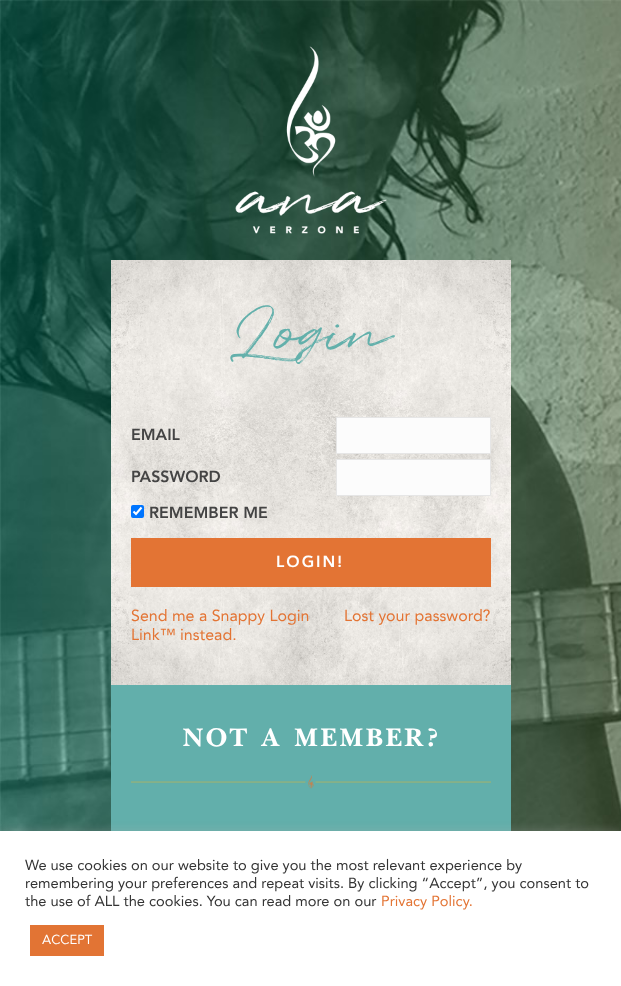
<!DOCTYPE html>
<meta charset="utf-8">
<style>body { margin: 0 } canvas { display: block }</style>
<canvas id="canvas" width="621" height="986"></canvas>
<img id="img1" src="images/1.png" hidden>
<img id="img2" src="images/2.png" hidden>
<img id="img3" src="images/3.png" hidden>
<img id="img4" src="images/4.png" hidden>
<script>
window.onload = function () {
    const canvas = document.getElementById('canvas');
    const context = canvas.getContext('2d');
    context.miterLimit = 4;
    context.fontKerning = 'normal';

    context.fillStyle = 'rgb(255, 255, 255)';
    context.fillRect(0, 0, 621, 986);
    context.drawImage(document.getElementById('img1'), 0, 0, 621, 831);
    context.drawImage(document.getElementById('img2'), 235, 46, 152, 188);
    context.drawImage(document.getElementById('img3'), 111, 260, 400, 425);
    context.fillStyle = 'rgb(252, 252, 252)';
    context.beginPath();
    context.rect(336.5, 417.5, 154, 36);
    context.fill();
    context.strokeStyle = 'rgb(230, 230, 230)';
    context.stroke();
    context.beginPath();
    context.rect(336.5, 459.5, 154, 36);
    context.fill();
    context.stroke();
    context.fillStyle = 'rgb(0, 117, 255)';
    context.beginPath();
    context.roundRect(131, 505, 13, 13, 2);
    context.fill();
    context.beginPath();
    context.moveTo(133.5, 511.5);
    context.lineTo(136, 514);
    context.lineTo(141.5, 507.5);
    context.strokeStyle = 'rgb(255, 255, 255)';
    context.lineWidth = 2.1;
    context.stroke();
    context.fillStyle = 'rgb(227, 116, 52)';
    context.fillRect(131, 538, 360, 49);
    context.fillStyle = 'rgb(98, 175, 171)';
    context.fillRect(111, 685, 400, 146);
    context.drawImage(document.getElementById('img4'), 131, 775, 360, 14);
    context.fillStyle = 'rgba(172, 171, 171, 0.3)';
    context.filter = 'blur(5px)';
    context.beginPath();
    context.rect(0, 830, 621, 155);
    context.fill();
    context.filter = 'none';
    context.fillStyle = 'rgb(255, 255, 255)';
    context.fillRect(0, 831, 621, 155);
    context.fillStyle = 'rgb(226, 116, 52)';
    context.fillRect(30, 925, 74, 31);
    context.font = '60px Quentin';
    context.fillStyle = 'rgb(99, 176, 171)';
    context.fillText('Login', 230, 350);
    context.font = '900 16px Avenir';
    context.fillStyle = 'rgb(68, 68, 68)';
    context.fillText('EMAIL', 131, 440);
    context.fillText('PASSWORD', 131, 482);
    context.fillText('REMEMBER ME', 149, 518);
    context.letterSpacing = '2px';
    context.fillStyle = 'rgb(255, 255, 255)';
    context.fillText('LOGIN!', 276, 567);
    context.letterSpacing = '0px';
    context.font = '16px Avenir';
    context.fillStyle = 'rgb(227, 116, 52)';
    context.fillText('Send me a Snappy Login', 131, 621);
    context.fillText('Link™ instead.', 131, 640);
    context.fillText('Lost your password?', 344, 621);
    context.letterSpacing = '1px';
    context.font = 'bold 30px Baskerville';
    context.fillStyle = 'rgb(255, 255, 255)';
    context.fillText('NOT A MEMBER?', 182, 746);
    context.letterSpacing = '0px';
    context.font = '14.65px Avenir';
    context.fillStyle = 'rgb(51, 51, 51)';
    context.fillText('We use cookies on our website to give you the most relevant experience by', 25, 870);
    context.fillText('remembering your preferences and repeat visits. By clicking “Accept”, you consent to', 25, 888);
    context.fillText('the use of ALL the cookies. You can read more on our', 25, 906);
    context.fillStyle = 'rgb(227, 116, 52)';
    context.fillText('Privacy Policy.', 381, 906);
    context.font = '13px Avenir';
    context.fillStyle = 'rgb(255, 255, 255)';
    context.fillText('ACCEPT', 42, 944);
};
</script>
